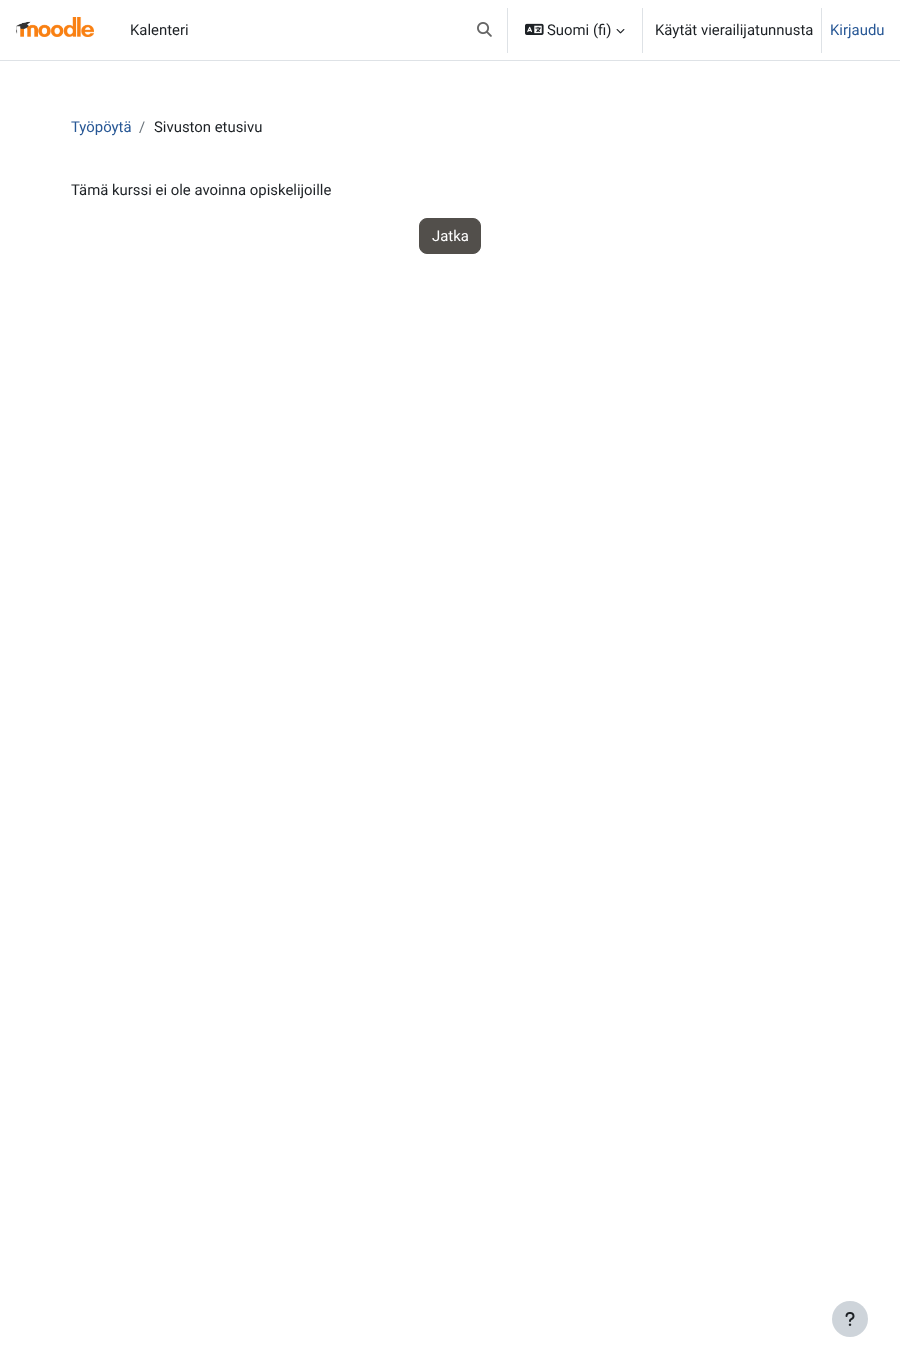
<!DOCTYPE html>
<meta charset="utf-8">
<style>body { margin: 0 } canvas { display: block }</style>
<canvas id="canvas" width="900" height="1369"></canvas>
<img id="img1" src="images/1.png" hidden>
<img id="img2" src="images/2.png" hidden>
<img id="img3" src="images/3.png" hidden>
<img id="img4" src="images/4.png" hidden>
<img id="img5" src="images/5.png" hidden>
<script>
window.onload = function () {
    const canvas = document.getElementById('canvas');
    const context = canvas.getContext('2d');
    context.miterLimit = 4;
    context.fontKerning = 'normal';

    context.fillStyle = 'rgb(255, 255, 255)';
    context.fillRect(0, 0, 900, 1369);
    context.fillStyle = 'rgb(222, 226, 230)';
    context.fillRect(0, 60, 900, 1);
    context.drawImage(document.getElementById('img1'), 16, 17, 78, 20);
    context.drawImage(document.getElementById('img2'), 477, 22, 15, 15);
    context.fillRect(507, 8, 1, 45);
    context.drawImage(document.getElementById('img3'), 525, 23, 19, 12);
    context.drawImage(document.getElementById('img4'), 616, 29, 9, 5);
    context.fillRect(642, 8, 1, 45);
    context.fillRect(821, 8, 1, 45);
    context.fillStyle = 'rgb(82, 79, 75)';
    context.beginPath();
    context.roundRect(419.5, 218.5, 61, 35, 7.5);
    context.fill();
    context.strokeStyle = 'rgb(82, 79, 75)';
    context.stroke();
    context.fillStyle = 'rgb(206, 212, 218)';
    context.beginPath();
    context.arc(850, 1319, 18, 0, 2 * Math.PI);
    context.fill();
    context.drawImage(document.getElementById('img5'), 845, 1312, 10, 14);
    context.font = '14.9px Roboto';
    context.fillStyle = 'rgb(29, 33, 37)';
    context.fillText('Kalenteri', 130, 35);
    context.fillText('Suomi (fi)', 547, 35);
    context.fillText('Käytät vierailijatunnusta', 655, 35);
    context.fillStyle = 'rgb(39, 87, 149)';
    context.fillText('Kirjaudu', 830, 35);
    context.fillText('Työpöytä', 71, 132);
    context.fillStyle = 'rgb(106, 115, 123)';
    context.fillText('/', 139, 132);
    context.fillStyle = 'rgb(29, 33, 37)';
    context.fillText('Sivuston etusivu', 154, 132);
    context.fillText('Tämä kurssi ei ole avoinna opiskelijoille', 71, 195);
    context.fillStyle = 'rgb(255, 255, 255)';
    context.fillText('Jatka', 432, 241);
};
</script>
